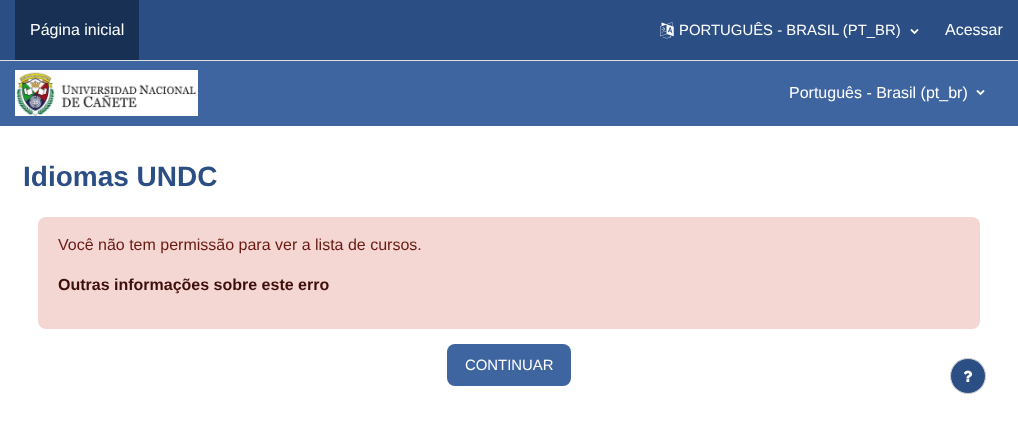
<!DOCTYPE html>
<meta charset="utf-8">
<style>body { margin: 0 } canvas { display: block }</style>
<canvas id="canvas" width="1018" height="426"></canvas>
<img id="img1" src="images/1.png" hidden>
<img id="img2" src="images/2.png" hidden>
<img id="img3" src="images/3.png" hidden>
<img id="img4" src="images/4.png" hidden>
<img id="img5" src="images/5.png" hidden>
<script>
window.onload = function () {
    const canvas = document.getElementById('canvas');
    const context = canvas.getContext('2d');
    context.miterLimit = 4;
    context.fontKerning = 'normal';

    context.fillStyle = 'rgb(255, 255, 255)';
    context.fillRect(0, 0, 1018, 426);
    context.fillStyle = 'rgb(43, 78, 132)';
    context.fillRect(0, 0, 1018, 60);
    context.fillStyle = 'rgb(222, 226, 230)';
    context.fillRect(0, 60, 1018, 1);
    context.fillStyle = 'rgb(24, 48, 84)';
    context.fillRect(15, 0, 124, 60);
    context.drawImage(document.getElementById('img1'), 660, 22, 14, 17);
    context.drawImage(document.getElementById('img2'), 910, 29, 9, 6);
    context.fillStyle = 'rgb(62, 101, 160)';
    context.fillRect(0, 61, 1018, 65);
    context.drawImage(document.getElementById('img3'), 15, 70, 183, 46);
    context.drawImage(document.getElementById('img4'), 976, 90, 9, 6);
    context.fillStyle = 'rgb(244, 214, 210)';
    context.beginPath();
    context.roundRect(38, 217, 942, 112, 8);
    context.fill();
    context.fillStyle = 'rgb(62, 101, 160)';
    context.beginPath();
    context.roundRect(447, 344, 124, 42, 8);
    context.fill();
    context.fillStyle = 'rgb(43, 78, 132)';
    context.beginPath();
    context.arc(968, 376, 17.5, 0, 2 * Math.PI);
    context.fill();
    context.strokeStyle = 'rgb(205, 205, 205)';
    context.stroke();
    context.drawImage(document.getElementById('img5'), 963, 370, 10, 12);
    context.font = '16px Liberation Sans';
    context.fillStyle = 'rgb(255, 255, 255)';
    context.fillText('Página inicial', 30, 35);
    context.font = '14.9px Liberation Sans';
    context.fillText('PORTUGUÊS - BRASIL (PT_BR)', 679, 35);
    context.font = '16px Liberation Sans';
    context.fillText('Acessar', 945, 35);
    context.fillText('Português - Brasil (pt_br)', 789, 98);
    context.font = 'bold 28px Liberation Sans';
    context.fillStyle = 'rgb(43, 78, 132)';
    context.fillText('Idiomas UNDC', 23, 186);
    context.font = '16px Liberation Sans';
    context.fillStyle = 'rgb(105, 25, 17)';
    context.fillText('Você não tem permissão para ver a lista de cursos.', 58, 250);
    context.font = 'bold 16px Liberation Sans';
    context.fillStyle = 'rgb(61, 15, 10)';
    context.fillText('Outras informações sobre este erro', 58, 290);
    context.font = '14.9px Liberation Sans';
    context.fillStyle = 'rgb(255, 255, 255)';
    context.fillText('CONTINUAR', 465, 370);
};
</script>
